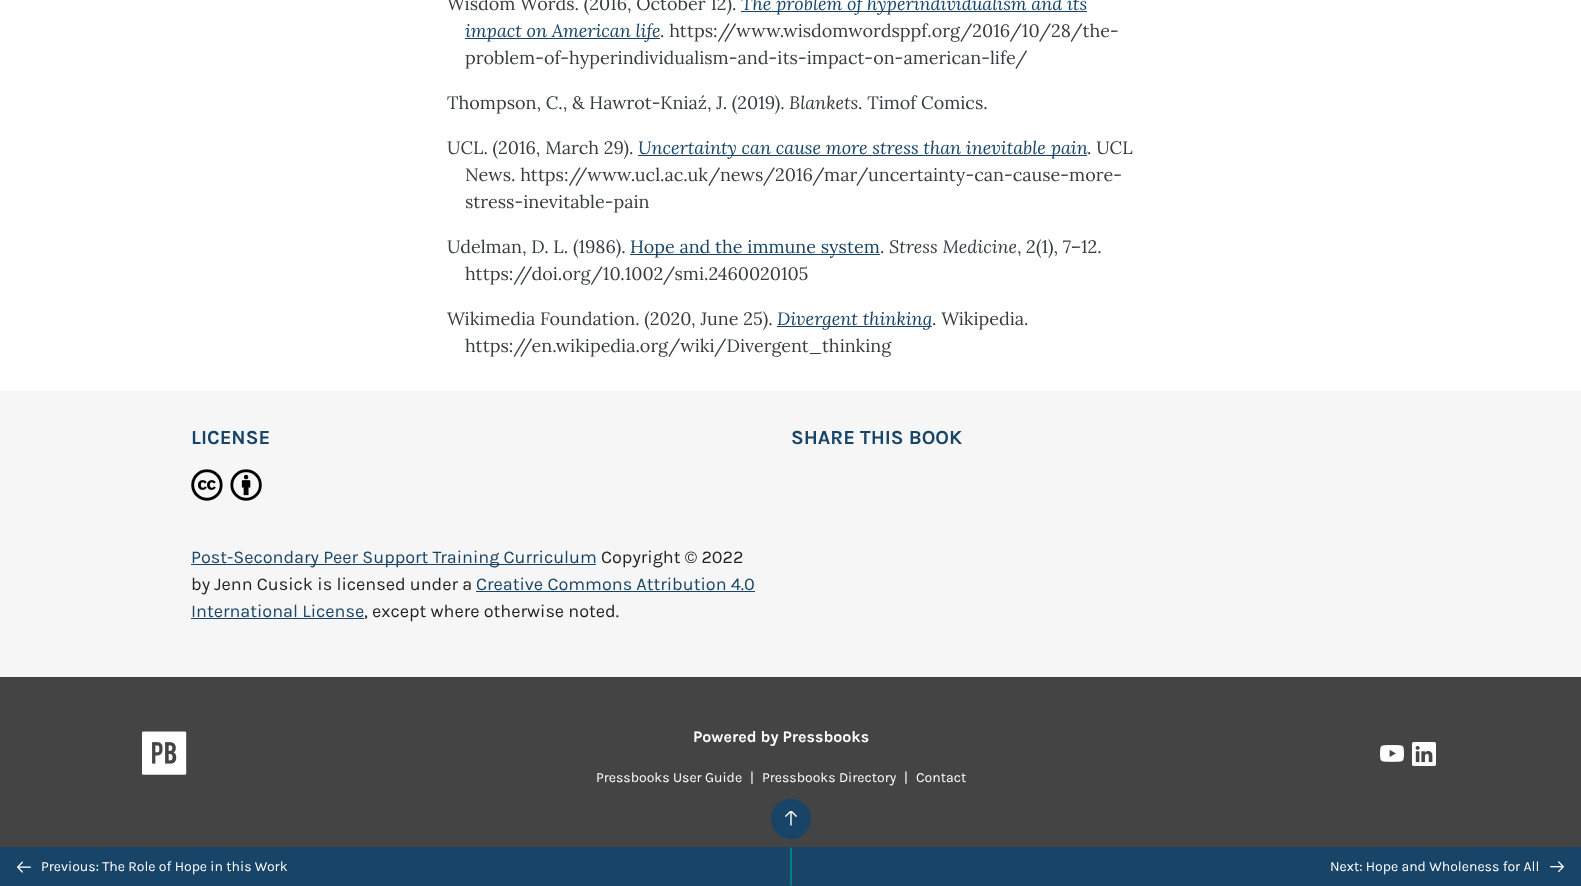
<!DOCTYPE html>
<meta charset="utf-8">
<style>body { margin: 0 } canvas { display: block }</style>
<canvas id="canvas" width="1581" height="886"></canvas>
<img id="img1" src="images/1.png" hidden>
<img id="img2" src="images/2.png" hidden>
<img id="img3" src="images/3.png" hidden>
<img id="img4" src="images/4.png" hidden>
<img id="img5" src="images/5.png" hidden>
<img id="img6" src="images/6.png" hidden>
<img id="img7" src="images/7.png" hidden>
<script>
window.onload = function () {
    const canvas = document.getElementById('canvas');
    const context = canvas.getContext('2d');
    context.miterLimit = 4;
    context.fontKerning = 'normal';

    context.fillStyle = 'rgb(255, 255, 255)';
    context.fillRect(0, 0, 1581, 886);
    context.fillStyle = 'rgb(23, 68, 103)';
    context.fillRect(741, 11, 346, 1);
    context.fillRect(465, 38, 195, 1);
    context.fillRect(638, 155, 449, 1);
    context.fillRect(630, 254, 250, 1);
    context.fillRect(777, 326, 155, 1);
    context.fillStyle = 'rgb(246, 246, 246)';
    context.fillRect(0, 391, 1581, 286);
    context.drawImage(document.getElementById('img1'), 191, 469, 71, 32);
    context.fillStyle = 'rgb(23, 68, 103)';
    context.fillRect(191, 564, 405, 1);
    context.fillRect(476, 591, 279, 1);
    context.fillRect(191, 618, 173, 1);
    context.fillRect(0, 847, 1581, 39);
    context.fillStyle = 'rgb(68, 68, 68)';
    context.fillRect(0, 677, 1581, 170);
    context.fillStyle = 'rgb(23, 68, 103)';
    context.beginPath();
    context.arc(791, 819, 19, 0, 2 * Math.PI);
    context.fill();
    context.strokeStyle = 'rgb(23, 68, 103)';
    context.lineWidth = 2;
    context.stroke();
    context.drawImage(document.getElementById('img2'), 785, 811, 12, 15);
    context.fillStyle = 'rgb(4, 126, 131)';
    context.beginPath();
    context.moveTo(791, 847);
    context.lineTo(791, 886);
    context.lineTo(790, 885);
    context.lineTo(790, 848);
    context.closePath();
    context.fill();
    context.drawImage(document.getElementById('img3'), 17, 861, 14, 12);
    context.beginPath();
    context.moveTo(791, 886);
    context.lineTo(791, 847);
    context.lineTo(792, 848);
    context.lineTo(792, 885);
    context.closePath();
    context.fill();
    context.drawImage(document.getElementById('img4'), 1550, 861, 14, 12);
    context.drawImage(document.getElementById('img5'), 142, 731, 45, 44);
    context.drawImage(document.getElementById('img6'), 1380, 745, 24, 17);
    context.drawImage(document.getElementById('img7'), 1412, 742, 24, 24);
    context.font = '18px Lora';
    context.fillStyle = 'rgb(55, 61, 63)';
    context.fillText('Wisdom Words. (2016, October 12).', 447, 10);
    context.font = 'italic 18px Lora';
    context.fillStyle = 'rgb(23, 68, 103)';
    context.fillText('The problem of hyperindividualism and its', 741, 10);
    context.fillText('impact on American life', 465, 37);
    context.font = '18px Lora';
    context.fillStyle = 'rgb(55, 61, 63)';
    context.fillText('. https://www.wisdomwordsppf.org/2016/10/28/the-', 660, 37);
    context.fillText('problem-of-hyperindividualism-and-its-impact-on-american-life/', 465, 64);
    context.fillText('Thompson, C., & Hawrot-Kniaź, J. (2019).', 447, 109);
    context.font = 'italic 18px Lora';
    context.fillText('Blankets', 789, 109);
    context.font = '18px Lora';
    context.fillText('. Timof Comics.', 858, 109);
    context.fillText('UCL. (2016, March 29).', 447, 154);
    context.font = 'italic 18px Lora';
    context.fillStyle = 'rgb(23, 68, 103)';
    context.fillText('Uncertainty can cause more stress than inevitable pain', 638, 154);
    context.font = '18px Lora';
    context.fillStyle = 'rgb(55, 61, 63)';
    context.fillText('. UCL', 1087, 154);
    context.fillText('News. https://www.ucl.ac.uk/news/2016/mar/uncertainty-can-cause-more-', 465, 181);
    context.fillText('stress-inevitable-pain', 465, 208);
    context.fillText('Udelman, D. L. (1986).', 447, 253);
    context.fillStyle = 'rgb(23, 68, 103)';
    context.fillText('Hope and the immune system', 630, 253);
    context.fillStyle = 'rgb(55, 61, 63)';
    context.fillText('.', 880, 253);
    context.font = 'italic 18px Lora';
    context.fillText('Stress Medicine', 889, 253);
    context.font = '18px Lora';
    context.fillText(',', 1017, 253);
    context.font = 'italic 18px Lora';
    context.fillText('2', 1026, 253);
    context.font = '18px Lora';
    context.fillText('(1), 7–12.', 1036, 253);
    context.fillText('https://doi.org/10.1002/smi.2460020105', 465, 280);
    context.fillText('Wikimedia Foundation. (2020, June 25).', 447, 325);
    context.font = 'italic 18px Lora';
    context.fillStyle = 'rgb(23, 68, 103)';
    context.fillText('Divergent thinking', 777, 325);
    context.font = '18px Lora';
    context.fillStyle = 'rgb(55, 61, 63)';
    context.fillText('. Wikipedia.', 932, 325);
    context.fillText('https://en.wikipedia.org/wiki/Divergent_thinking', 465, 352);
    context.font = 'bold 20px Karla';
    context.fillStyle = 'rgb(23, 68, 103)';
    context.fillText('LICENSE', 191, 444);
    context.font = '18px Karla';
    context.fillText('Post-Secondary Peer Support Training Curriculum', 191, 563);
    context.fillStyle = 'rgb(34, 34, 34)';
    context.fillText('Copyright © 2022', 601, 563);
    context.fillText('by Jenn Cusick is licensed under a', 191, 590);
    context.fillStyle = 'rgb(23, 68, 103)';
    context.fillText('Creative Commons Attribution 4.0', 476, 590);
    context.fillText('International License', 191, 617);
    context.fillStyle = 'rgb(34, 34, 34)';
    context.fillText(', except where otherwise noted.', 364, 617);
    context.font = 'bold 20px Karla';
    context.fillStyle = 'rgb(23, 68, 103)';
    context.fillText('SHARE THIS BOOK', 791, 444);
    context.font = '14px Karla';
    context.fillStyle = 'rgb(255, 255, 255)';
    context.fillText('Previous: The Role of Hope in this Work', 41, 871);
    context.fillText('Next: Hope and Wholeness for All', 1330, 871);
    context.font = 'bold 16px Karla';
    context.fillText('Powered by Pressbooks', 693, 742);
    context.font = '14px Karla';
    context.fillText('Pressbooks User Guide', 596, 782);
    context.fillText('|', 750, 782);
    context.fillText('Pressbooks Directory', 762, 782);
    context.fillText('|', 904, 782);
    context.fillText('Contact', 916, 782);
};
</script>
